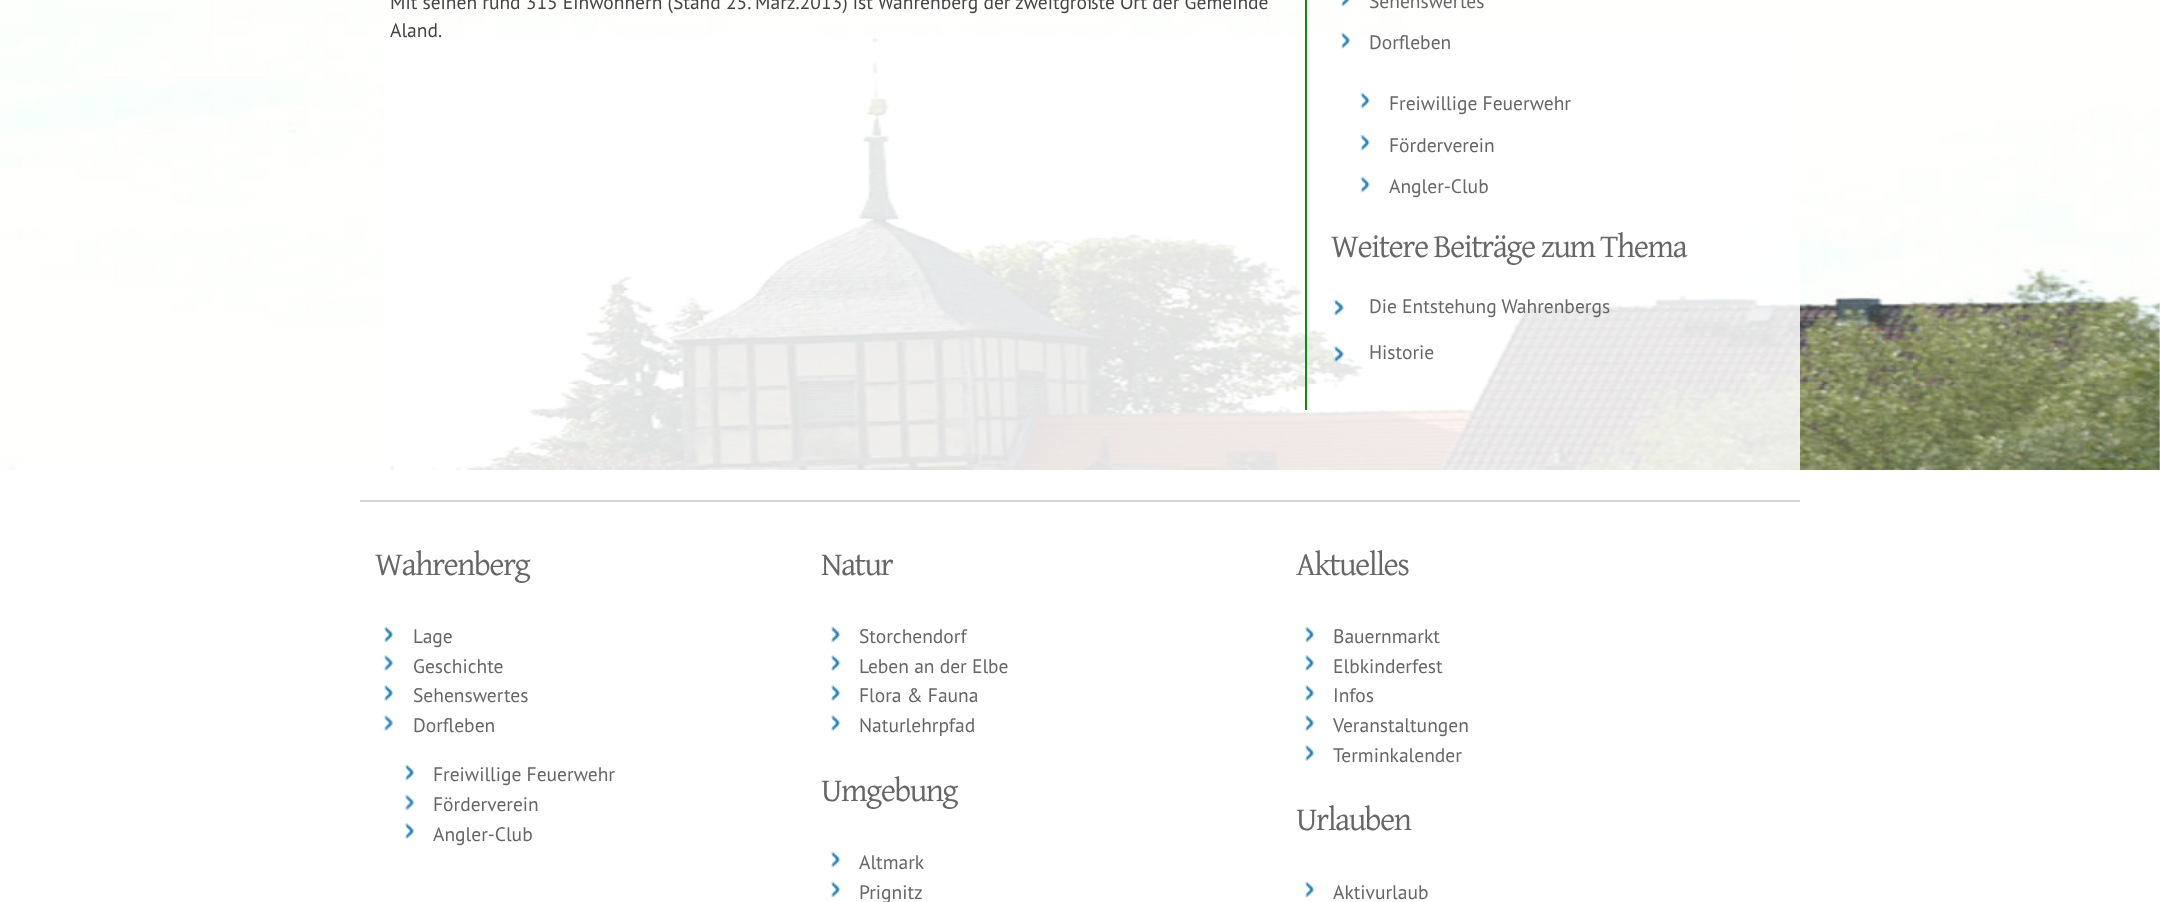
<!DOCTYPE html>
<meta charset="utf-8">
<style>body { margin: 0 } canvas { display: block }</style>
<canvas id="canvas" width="2160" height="902"></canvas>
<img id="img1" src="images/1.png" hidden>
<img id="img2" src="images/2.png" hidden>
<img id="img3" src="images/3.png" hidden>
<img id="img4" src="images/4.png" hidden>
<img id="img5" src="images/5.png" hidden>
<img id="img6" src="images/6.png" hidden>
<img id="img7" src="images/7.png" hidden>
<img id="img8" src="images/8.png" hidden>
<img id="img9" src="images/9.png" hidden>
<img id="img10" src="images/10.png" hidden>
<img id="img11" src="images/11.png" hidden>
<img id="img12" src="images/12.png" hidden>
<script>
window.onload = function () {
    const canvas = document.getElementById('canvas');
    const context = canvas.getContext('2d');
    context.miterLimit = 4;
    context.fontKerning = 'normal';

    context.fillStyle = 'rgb(255, 255, 255)';
    context.fillRect(0, 0, 2160, 902);
    context.drawImage(document.getElementById('img1'), 0, 0, 2160, 470);
    context.fillStyle = 'rgba(255, 255, 255, 0.85)';
    context.fillRect(384, 36, 1416, 434);
    context.fillStyle = 'rgb(4, 148, 10)';
    context.fillRect(1305, 0, 2, 410);
    context.drawImage(document.getElementById('img2'), 1340, 0, 10, 7);
    context.drawImage(document.getElementById('img3'), 1340, 32, 11, 17);
    context.drawImage(document.getElementById('img4'), 1360, 92, 10, 17);
    context.drawImage(document.getElementById('img4'), 1360, 134, 10, 17);
    context.drawImage(document.getElementById('img4'), 1360, 176, 10, 17);
    context.drawImage(document.getElementById('img5'), 1333, 299, 12, 17);
    context.drawImage(document.getElementById('img6'), 1333, 346, 12, 16);
    context.fillStyle = 'rgb(214, 214, 214)';
    context.fillRect(360, 500, 1440, 2);
    context.drawImage(document.getElementById('img7'), 383, 626, 11, 17);
    context.drawImage(document.getElementById('img8'), 383, 655, 11, 16);
    context.drawImage(document.getElementById('img9'), 383, 685, 11, 16);
    context.drawImage(document.getElementById('img8'), 383, 715, 11, 16);
    context.drawImage(document.getElementById('img7'), 404, 764, 11, 17);
    context.drawImage(document.getElementById('img10'), 404, 794, 11, 17);
    context.drawImage(document.getElementById('img9'), 404, 823, 11, 16);
    context.drawImage(document.getElementById('img11'), 830, 626, 11, 17);
    context.drawImage(document.getElementById('img12'), 830, 655, 11, 16);
    context.drawImage(document.getElementById('img12'), 830, 685, 11, 16);
    context.drawImage(document.getElementById('img12'), 830, 715, 11, 16);
    context.drawImage(document.getElementById('img11'), 830, 851, 11, 17);
    context.drawImage(document.getElementById('img11'), 830, 881, 11, 17);
    context.drawImage(document.getElementById('img7'), 1304, 626, 11, 17);
    context.drawImage(document.getElementById('img12'), 1304, 655, 11, 16);
    context.drawImage(document.getElementById('img9'), 1304, 685, 11, 16);
    context.drawImage(document.getElementById('img12'), 1304, 715, 11, 16);
    context.drawImage(document.getElementById('img9'), 1304, 745, 11, 16);
    context.drawImage(document.getElementById('img7'), 1304, 881, 11, 17);
    context.font = '19.5px PT Sans';
    context.fillStyle = 'rgb(68, 68, 68)';
    context.fillText('Mit seinen rund 315 Einwohnern (Stand 25. März.2013) ist Wahrenberg der zweitgrößte Ort der Gemeinde', 390, 9);
    context.fillText('Aland.', 390, 37);
    context.fillStyle = 'rgb(102, 102, 102)';
    context.fillText('Sehenswertes', 1369, 8);
    context.fillText('Dorfleben', 1369, 49);
    context.fillText('Freiwillige Feuerwehr', 1389, 110);
    context.fillText('Förderverein', 1389, 152);
    context.fillText('Angler-Club', 1389, 193);
    context.letterSpacing = '-1.5px';
    context.font = '33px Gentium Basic';
    context.fillText('Weitere Beiträge zum Thema', 1331, 257);
    context.letterSpacing = '0px';
    context.font = '19.5px PT Sans';
    context.fillText('Die Entstehung Wahrenbergs', 1369, 313);
    context.fillText('Historie', 1369, 359);
    context.letterSpacing = '-1.5px';
    context.font = '33px Gentium Basic';
    context.fillText('Wahrenberg', 375, 575);
    context.letterSpacing = '0px';
    context.font = '19.5px PT Sans';
    context.fillText('Lage', 413, 643);
    context.fillText('Geschichte', 413, 673);
    context.fillText('Sehenswertes', 413, 702);
    context.fillText('Dorfleben', 413, 732);
    context.fillText('Freiwillige Feuerwehr', 433, 781);
    context.fillText('Förderverein', 433, 811);
    context.fillText('Angler-Club', 433, 841);
    context.letterSpacing = '-1.5px';
    context.font = '33px Gentium Basic';
    context.fillText('Natur', 821, 575);
    context.letterSpacing = '0px';
    context.font = '19.5px PT Sans';
    context.fillText('Storchendorf', 859, 643);
    context.fillText('Leben an der Elbe', 859, 673);
    context.fillText('Flora & Fauna', 859, 702);
    context.fillText('Naturlehrpfad', 859, 732);
    context.letterSpacing = '-1.5px';
    context.font = '33px Gentium Basic';
    context.fillText('Umgebung', 821, 801);
    context.letterSpacing = '0px';
    context.font = '19.5px PT Sans';
    context.fillText('Altmark', 859, 869);
    context.fillText('Prignitz', 859, 899);
    context.letterSpacing = '-1.5px';
    context.font = '33px Gentium Basic';
    context.fillText('Aktuelles', 1296, 575);
    context.letterSpacing = '0px';
    context.font = '19.5px PT Sans';
    context.fillText('Bauernmarkt', 1333, 643);
    context.fillText('Elbkinderfest', 1333, 673);
    context.fillText('Infos', 1333, 702);
    context.fillText('Veranstaltungen', 1333, 732);
    context.fillText('Terminkalender', 1333, 762);
    context.letterSpacing = '-1.5px';
    context.font = '33px Gentium Basic';
    context.fillText('Urlauben', 1296, 830);
    context.letterSpacing = '0px';
    context.font = '19.5px PT Sans';
    context.fillText('Aktivurlaub', 1333, 899);
};
</script>
